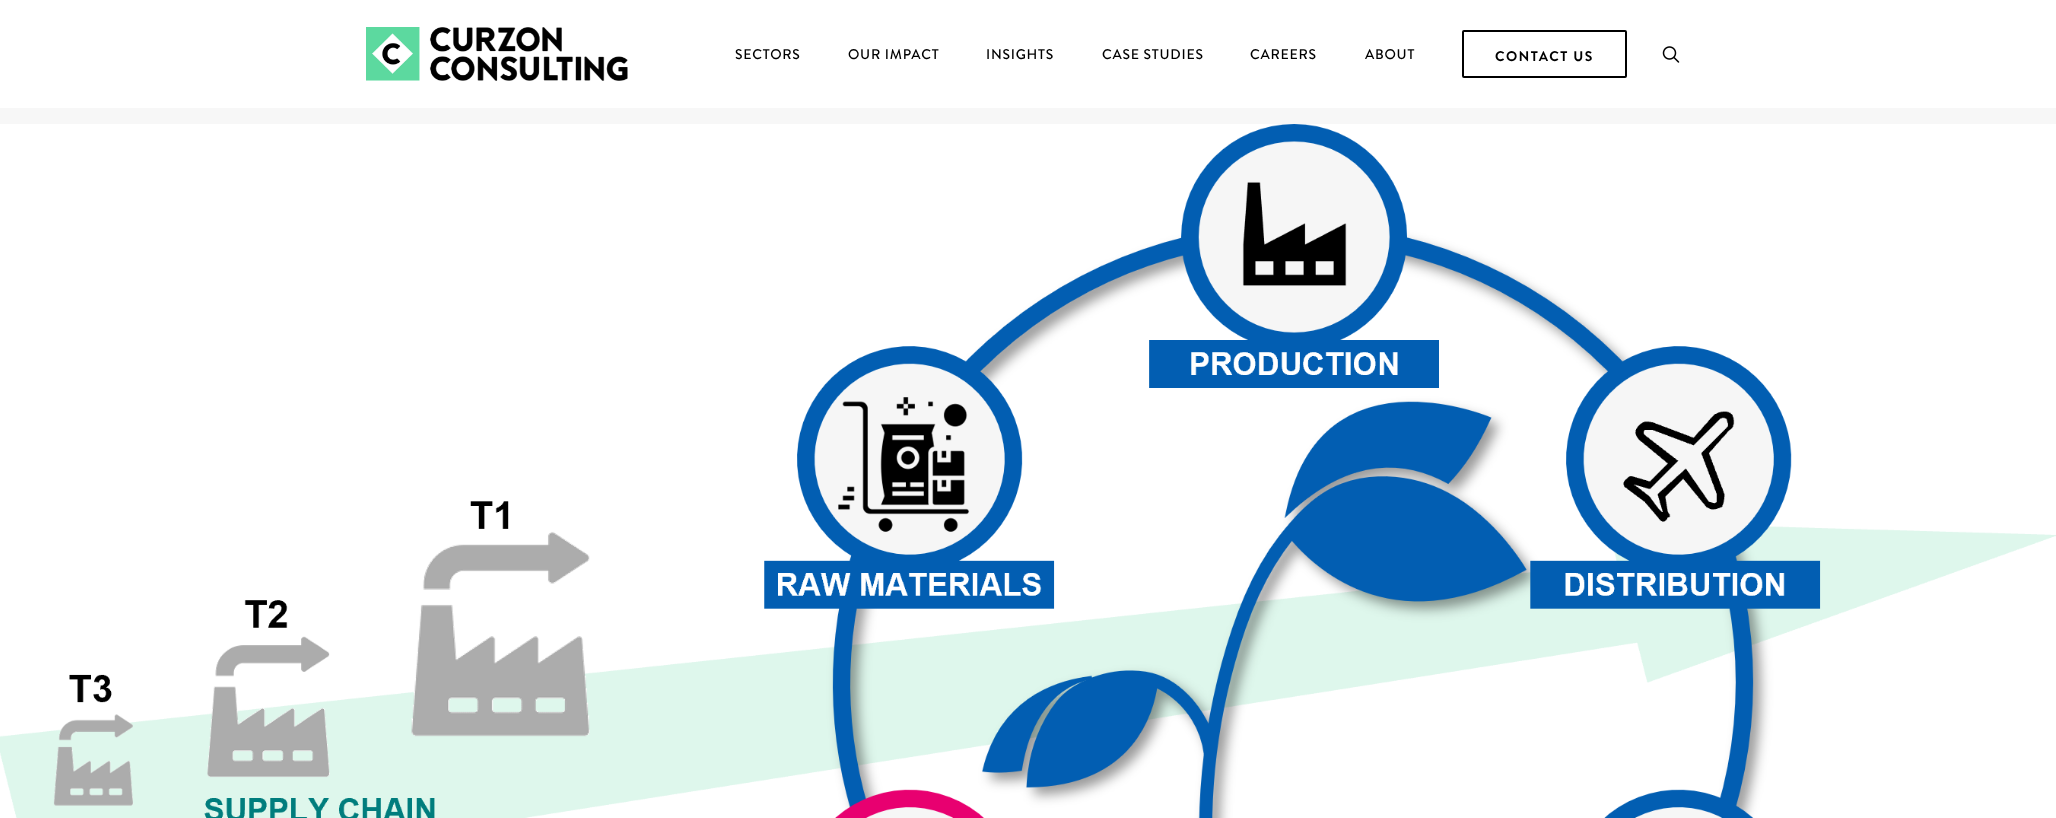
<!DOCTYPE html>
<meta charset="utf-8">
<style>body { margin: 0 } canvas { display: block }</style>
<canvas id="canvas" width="2056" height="818"></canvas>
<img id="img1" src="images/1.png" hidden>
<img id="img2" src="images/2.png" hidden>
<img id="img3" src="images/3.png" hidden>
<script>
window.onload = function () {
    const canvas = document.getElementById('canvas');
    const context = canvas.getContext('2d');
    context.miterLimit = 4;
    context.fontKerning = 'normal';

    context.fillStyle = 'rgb(247, 247, 247)';
    context.fillRect(0, 0, 2056, 818);
    context.fillStyle = 'rgb(255, 255, 255)';
    context.fillRect(0, 0, 2056, 108);
    context.drawImage(document.getElementById('img1'), 366, 27, 262, 54);
    context.beginPath();
    context.roundRect(1463, 31, 163, 46, 1);
    context.strokeStyle = 'rgb(0, 0, 0)';
    context.lineWidth = 2;
    context.stroke();
    context.drawImage(document.getElementById('img2'), 1662, 46, 18, 17);
    context.fillRect(0, 124, 2056, 694);
    context.drawImage(document.getElementById('img3'), 0, 124, 2056, 694);
    context.letterSpacing = '0.75px';
    context.font = '500 14px Brandon Grotesque';
    context.fillStyle = 'rgb(0, 0, 0)';
    context.fillText('SECTORS', 735, 59);
    context.fillText('OUR IMPACT', 848, 59);
    context.fillText('INSIGHTS', 986, 59);
    context.fillText('CASE STUDIES', 1102, 59);
    context.fillText('CAREERS', 1250, 59);
    context.fillText('ABOUT', 1365, 59);
    context.letterSpacing = '1.4px';
    context.font = 'bold 14px Brandon Grotesque';
    context.fillText('CONTACT US', 1495, 61);
};
</script>
